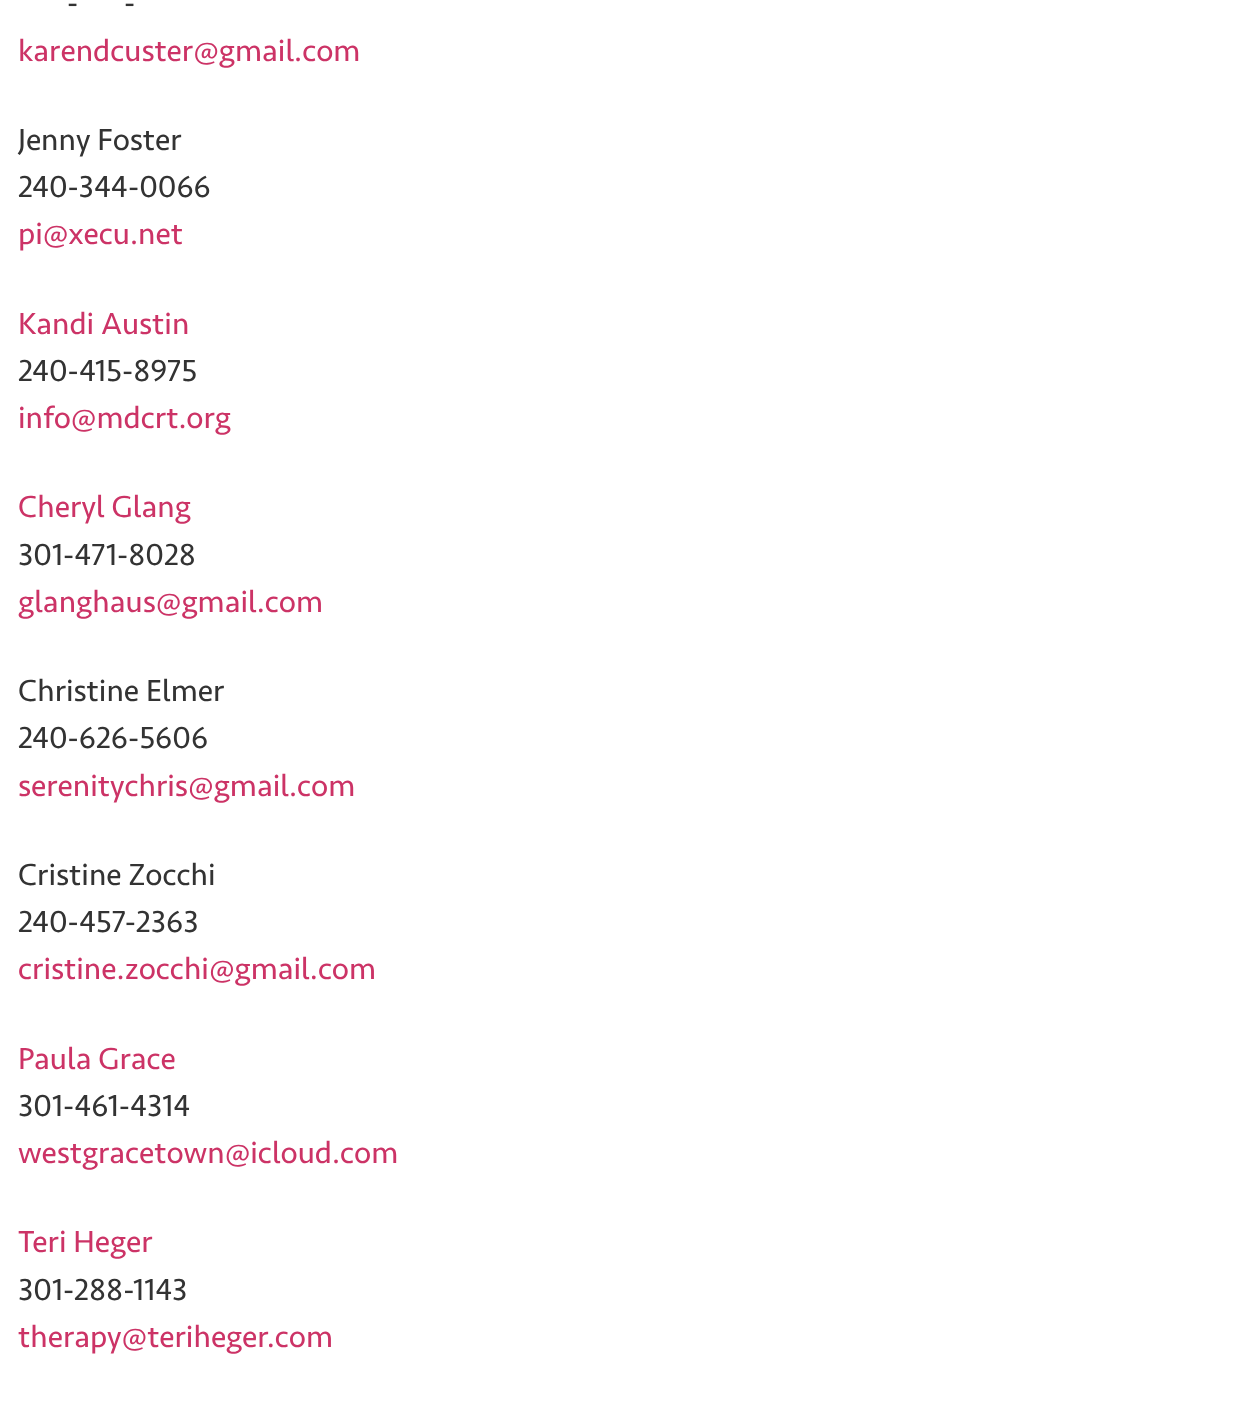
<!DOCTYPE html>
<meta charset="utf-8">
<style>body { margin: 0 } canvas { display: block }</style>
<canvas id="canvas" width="1246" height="1416"></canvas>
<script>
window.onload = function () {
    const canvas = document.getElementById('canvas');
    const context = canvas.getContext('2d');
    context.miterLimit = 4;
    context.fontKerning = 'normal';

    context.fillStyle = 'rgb(255, 255, 255)';
    context.fillRect(0, 0, 1246, 1416);
    context.font = '31.5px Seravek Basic';
    context.fillStyle = 'rgb(51, 51, 51)';
    context.fillText('-', 67, 13);
    context.fillText('-', 124, 13);
    context.fillStyle = 'rgb(204, 51, 102)';
    context.fillText('karendcuster@gmail.com', 18, 61);
    context.fillStyle = 'rgb(51, 51, 51)';
    context.fillText('Jenny Foster', 18, 150);
    context.fillText('240-344-0066', 18, 197);
    context.fillStyle = 'rgb(204, 51, 102)';
    context.fillText('pi@xecu.net', 18, 244);
    context.fillText('Kandi Austin', 18, 334);
    context.fillStyle = 'rgb(51, 51, 51)';
    context.fillText('240-415-8975', 18, 381);
    context.fillStyle = 'rgb(204, 51, 102)';
    context.fillText('info@mdcrt.org', 18, 428);
    context.fillText('Cheryl Glang', 18, 517);
    context.fillStyle = 'rgb(51, 51, 51)';
    context.fillText('301-471-8028', 18, 565);
    context.fillStyle = 'rgb(204, 51, 102)';
    context.fillText('glanghaus@gmail.com', 18, 612);
    context.fillStyle = 'rgb(51, 51, 51)';
    context.fillText('Christine Elmer', 18, 701);
    context.fillText('240-626-5606', 18, 748);
    context.fillStyle = 'rgb(204, 51, 102)';
    context.fillText('serenitychris@gmail.com', 18, 796);
    context.fillStyle = 'rgb(51, 51, 51)';
    context.fillText('Cristine Zocchi', 18, 885);
    context.fillText('240-457-2363', 18, 932);
    context.fillStyle = 'rgb(204, 51, 102)';
    context.fillText('cristine.zocchi@gmail.com', 18, 979);
    context.fillText('Paula Grace', 18, 1069);
    context.fillStyle = 'rgb(51, 51, 51)';
    context.fillText('301-461-4314', 18, 1116);
    context.fillStyle = 'rgb(204, 51, 102)';
    context.fillText('westgracetown@icloud.com', 18, 1163);
    context.fillText('Teri Heger', 18, 1252);
    context.fillStyle = 'rgb(51, 51, 51)';
    context.fillText('301-288-1143', 18, 1300);
    context.fillStyle = 'rgb(204, 51, 102)';
    context.fillText('therapy@teriheger.com', 18, 1347);
};
</script>
